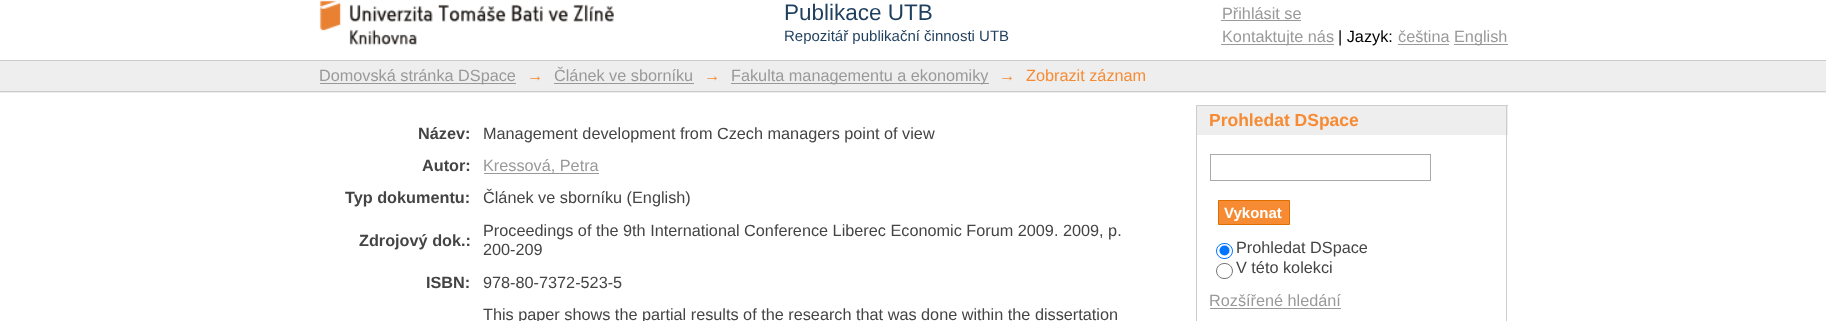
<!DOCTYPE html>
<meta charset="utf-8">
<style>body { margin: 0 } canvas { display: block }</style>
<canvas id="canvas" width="1826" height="321"></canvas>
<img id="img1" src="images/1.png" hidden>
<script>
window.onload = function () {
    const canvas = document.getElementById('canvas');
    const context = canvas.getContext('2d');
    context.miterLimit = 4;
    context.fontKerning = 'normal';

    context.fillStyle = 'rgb(255, 255, 255)';
    context.fillRect(0, 0, 1826, 321);
    context.drawImage(document.getElementById('img1'), 319, 0, 295, 46);
    context.fillStyle = 'rgb(153, 153, 153)';
    context.fillRect(1221, 20, 80, 1);
    context.fillRect(1221, 44, 113, 1);
    context.fillRect(1398, 44, 51, 1);
    context.fillRect(1454, 44, 54, 1);
    context.fillStyle = 'rgb(238, 238, 238)';
    context.fillRect(0, 61, 1826, 32);
    context.fillStyle = 'rgb(204, 204, 204)';
    context.fillRect(0, 60, 1826, 1);
    context.fillRect(0, 91, 1826, 1);
    context.fillStyle = 'rgb(153, 153, 153)';
    context.fillRect(320, 83, 196, 1);
    context.fillRect(554, 83, 140, 1);
    context.fillRect(731, 83, 258, 1);
    context.fillRect(484, 173, 115, 1);
    context.fillStyle = 'rgb(238, 238, 238)';
    context.fillRect(1197, 106, 311, 29);
    context.fillStyle = 'rgb(204, 204, 204)';
    context.fillRect(1196, 105, 312, 1);
    context.fillRect(1506, 105, 1, 216);
    context.fillRect(1196, 105, 1, 216);
    context.strokeStyle = 'rgb(170, 170, 170)';
    context.strokeRect(1210.5, 154.5, 220, 26);
    context.fillStyle = 'rgb(246, 139, 51)';
    context.beginPath();
    context.rect(1218.5, 200.5, 71, 24);
    context.fill();
    context.strokeStyle = 'rgb(223, 110, 0)';
    context.stroke();
    context.beginPath();
    context.roundRect(1216.5, 243.5, 16, 15, 7.5);
    context.strokeStyle = 'rgb(0, 117, 255)';
    context.stroke();
    context.fillStyle = 'rgb(0, 117, 255)';
    context.beginPath();
    context.arc(1224.5, 250.5, 5, 0, 2 * Math.PI);
    context.fill();
    context.beginPath();
    context.roundRect(1216.5, 263.5, 16, 15, 7.5);
    context.strokeStyle = 'rgb(118, 118, 118)';
    context.stroke();
    context.fillStyle = 'rgb(153, 153, 153)';
    context.fillRect(1210, 308, 131, 1);
    context.font = '22.5px Liberation Sans';
    context.fillStyle = 'rgb(31, 63, 94)';
    context.fillText('Publikace UTB', 784, 20);
    context.font = '15px Liberation Sans';
    context.fillText('Repozitář publikační činnosti UTB', 784, 41);
    context.font = '16.25px Liberation Sans';
    context.fillStyle = 'rgb(153, 153, 153)';
    context.fillText('Přihlásit se', 1222, 19);
    context.fillText('Kontaktujte nás', 1222, 42);
    context.fillStyle = 'rgb(0, 0, 0)';
    context.fillText('| Jazyk:', 1338, 42);
    context.fillStyle = 'rgb(153, 153, 153)';
    context.fillText('čeština', 1398, 42);
    context.fillText('English', 1454, 42);
    context.fillText('Domovská stránka DSpace', 319, 81);
    context.fillStyle = 'rgb(246, 139, 51)';
    context.fillText('→', 527, 81);
    context.fillStyle = 'rgb(153, 153, 153)';
    context.fillText('Článek ve sborníku', 554, 81);
    context.fillStyle = 'rgb(246, 139, 51)';
    context.fillText('→', 704, 81);
    context.fillStyle = 'rgb(153, 153, 153)';
    context.fillText('Fakulta managementu a ekonomiky', 731, 81);
    context.fillStyle = 'rgb(246, 139, 51)';
    context.fillText('→', 999, 81);
    context.fillText('Zobrazit záznam', 1026, 81);
    context.font = 'bold 16.25px Liberation Sans';
    context.fillStyle = 'rgb(68, 68, 68)';
    context.fillText('Název:', 418, 139);
    context.font = '16.25px Liberation Sans';
    context.fillText('Management development from Czech managers point of view', 483, 139);
    context.font = 'bold 16.25px Liberation Sans';
    context.fillText('Autor:', 422, 171);
    context.font = '16.25px Liberation Sans';
    context.fillStyle = 'rgb(153, 153, 153)';
    context.fillText('Kressová, Petra', 483, 171);
    context.font = 'bold 16.25px Liberation Sans';
    context.fillStyle = 'rgb(68, 68, 68)';
    context.fillText('Typ dokumentu:', 345, 203);
    context.font = '16.25px Liberation Sans';
    context.fillText('Článek ve sborníku (English)', 483, 203);
    context.font = 'bold 16.25px Liberation Sans';
    context.fillText('Zdrojový dok.:', 359, 246);
    context.font = '16.25px Liberation Sans';
    context.fillText('Proceedings of the 9th International Conference Liberec Economic Forum 2009. 2009, p.', 483, 236);
    context.fillText('200-209', 483, 255);
    context.font = 'bold 16.25px Liberation Sans';
    context.fillText('ISBN:', 426, 288);
    context.font = '16.25px Liberation Sans';
    context.fillText('978-80-7372-523-5', 483, 288);
    context.fillText('This paper shows the partial results of the research that was done within the dissertation', 483, 320);
    context.font = 'bold 17.5px Liberation Sans';
    context.fillStyle = 'rgb(246, 139, 51)';
    context.fillText('Prohledat DSpace', 1209, 126);
    context.font = 'bold 15px Liberation Sans';
    context.fillStyle = 'rgb(255, 255, 255)';
    context.fillText('Vykonat', 1224, 218);
    context.font = '16.25px Liberation Sans';
    context.fillStyle = 'rgb(68, 68, 68)';
    context.fillText('Prohledat DSpace', 1236, 253);
    context.fillText('V této kolekci', 1236, 273);
    context.fillStyle = 'rgb(153, 153, 153)';
    context.fillText('Rozšířené hledání', 1209, 306);
};
</script>
